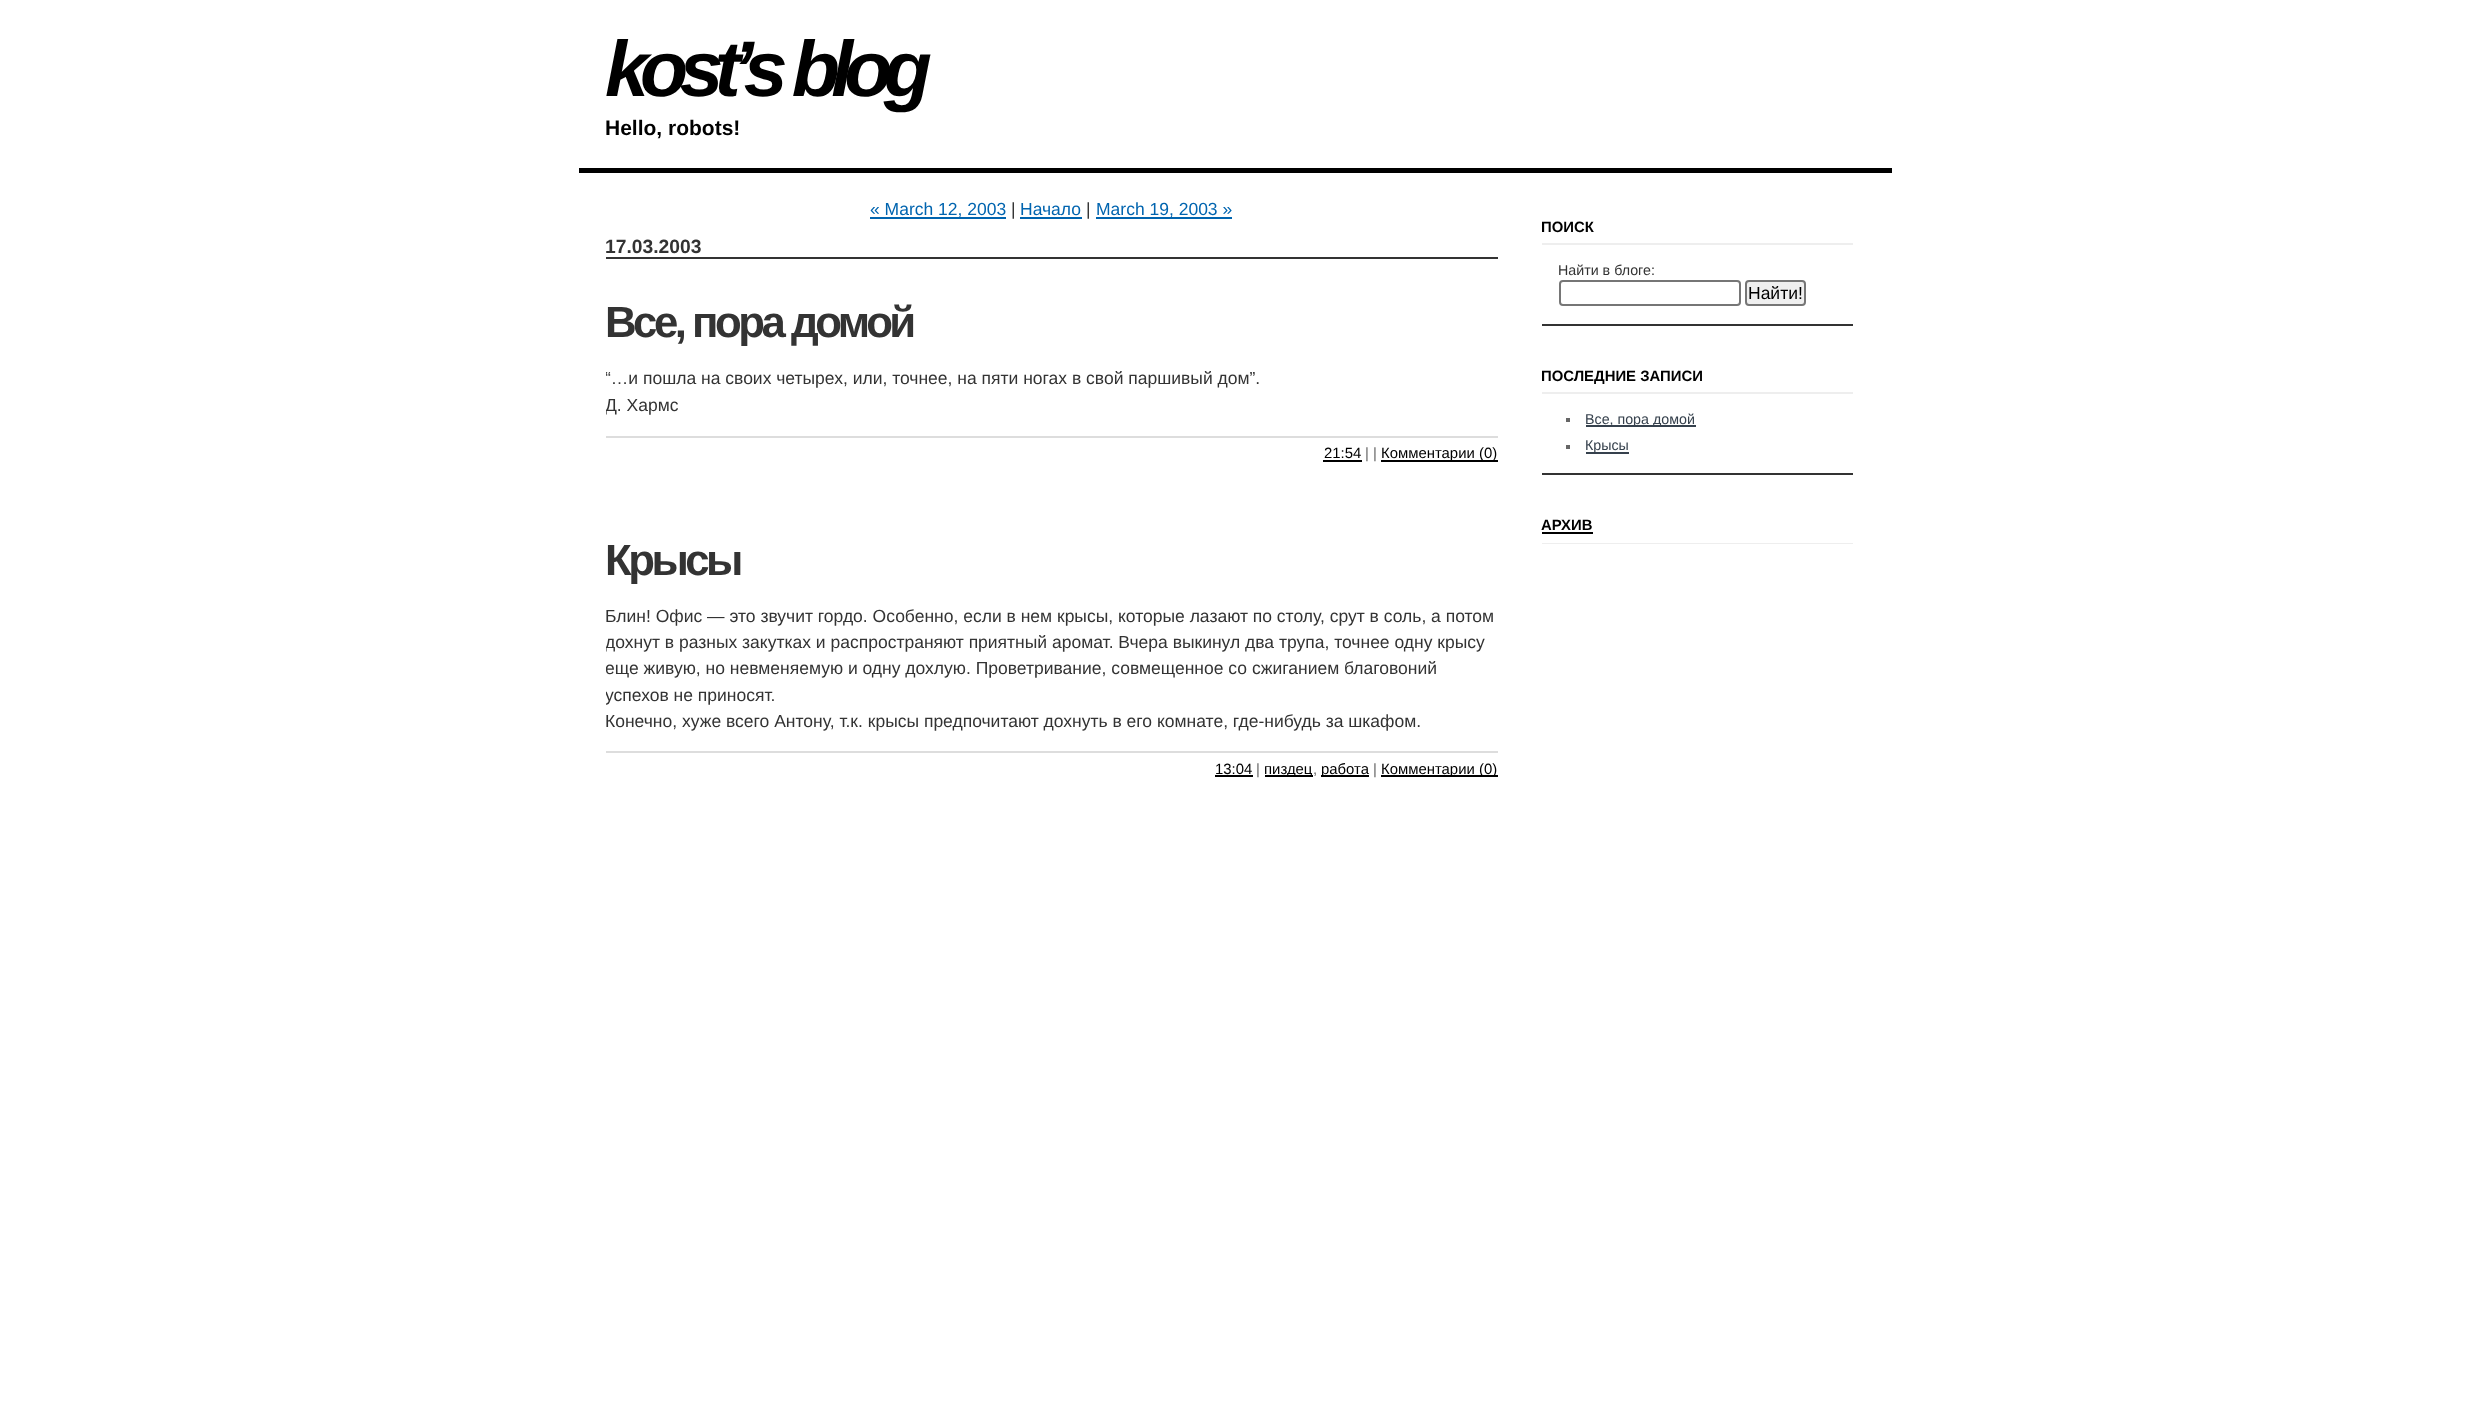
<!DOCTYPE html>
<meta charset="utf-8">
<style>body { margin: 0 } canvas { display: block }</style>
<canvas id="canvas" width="2469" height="1419"></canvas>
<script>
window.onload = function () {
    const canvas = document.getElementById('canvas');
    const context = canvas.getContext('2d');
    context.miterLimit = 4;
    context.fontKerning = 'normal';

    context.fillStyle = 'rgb(255, 255, 255)';
    context.fillRect(0, 0, 2469, 1419);
    context.fillStyle = 'rgb(0, 0, 0)';
    context.fillRect(579, 168, 1313, 5);
    context.fillStyle = 'rgb(0, 100, 175)';
    context.fillRect(870, 217, 136, 2);
    context.fillRect(1020, 217, 62, 2);
    context.fillRect(1096, 217, 136, 2);
    context.fillStyle = 'rgb(51, 51, 51)';
    context.fillRect(606, 257, 892, 2);
    context.fillStyle = 'rgb(221, 221, 221)';
    context.fillRect(606, 436, 892, 2);
    context.fillStyle = 'rgb(0, 0, 0)';
    context.fillRect(1323, 460, 39, 2);
    context.fillRect(1381, 460, 117, 2);
    context.fillStyle = 'rgb(221, 221, 221)';
    context.fillRect(606, 751, 892, 2);
    context.fillStyle = 'rgb(0, 0, 0)';
    context.fillRect(1215, 775, 38, 2);
    context.fillRect(1265, 775, 48, 2);
    context.fillRect(1321, 775, 48, 2);
    context.fillRect(1381, 775, 117, 2);
    context.fillStyle = 'rgb(51, 51, 51)';
    context.fillRect(1542, 324, 311, 2);
    context.fillStyle = 'rgb(238, 238, 238)';
    context.fillRect(1542, 243, 311, 2);
    context.beginPath();
    context.roundRect(1560, 281, 180, 24, 3);
    context.strokeStyle = 'rgb(118, 118, 118)';
    context.lineWidth = 2;
    context.stroke();
    context.fillStyle = 'rgb(239, 239, 239)';
    context.beginPath();
    context.roundRect(1746, 281, 59, 24, 3);
    context.fill();
    context.stroke();
    context.fillStyle = 'rgb(51, 51, 51)';
    context.fillRect(1542, 473, 311, 2);
    context.fillStyle = 'rgb(238, 238, 238)';
    context.fillRect(1542, 392, 311, 2);
    context.fillStyle = 'rgb(102, 102, 102)';
    context.fillRect(1566, 418, 4, 4);
    context.fillStyle = 'rgb(54, 65, 77)';
    context.fillRect(1586, 425, 110, 2);
    context.fillStyle = 'rgb(102, 102, 102)';
    context.fillRect(1566, 445, 4, 4);
    context.fillStyle = 'rgb(54, 65, 77)';
    context.fillRect(1586, 452, 43, 2);
    context.fillStyle = 'rgb(238, 238, 238)';
    context.fillRect(1542, 543, 311, 1);
    context.fillStyle = 'rgb(0, 0, 0)';
    context.fillRect(1542, 532, 51, 2);
    context.letterSpacing = '-8.75px';
    context.font = 'italic bold 78.75px Liberation Sans';
    context.fillText('kost’s blog', 605, 96);
    context.letterSpacing = '0px';
    context.font = 'bold 21px Liberation Sans';
    context.fillText('Hello, robots!', 605, 135);
    context.font = '17.5px Liberation Sans';
    context.fillStyle = 'rgb(0, 100, 175)';
    context.fillText('« March 12, 2003', 870, 215);
    context.fillStyle = 'rgb(51, 51, 51)';
    context.fillText('|', 1011, 215);
    context.fillStyle = 'rgb(0, 100, 175)';
    context.fillText('Начало', 1020, 215);
    context.fillStyle = 'rgb(51, 51, 51)';
    context.fillText('|', 1086, 215);
    context.fillStyle = 'rgb(0, 100, 175)';
    context.fillText('March 19, 2003 »', 1096, 215);
    context.font = 'bold 19.25px Liberation Sans';
    context.fillStyle = 'rgb(51, 51, 51)';
    context.fillText('17.03.2003', 605, 253);
    context.letterSpacing = '-3.5px';
    context.font = 'bold 43.75px Liberation Sans';
    context.fillText('Все, пора домой', 605, 337);
    context.save();
    context.beginPath();
    context.rect(606, 298, 892, 201);
    context.clip();
    context.letterSpacing = '0px';
    context.font = '17.5px Liberation Sans';
    context.fillText('“…и пошла на своих четырех, или, точнее, на пяти ногах в свой паршивый дом”.', 605, 384);
    context.fillText('Д. Хармс', 605, 411);
    context.restore();
    context.letterSpacing = '0px';
    context.font = '14.9px Liberation Sans';
    context.fillStyle = 'rgb(0, 0, 0)';
    context.fillText('21:54', 1324, 458);
    context.fillStyle = 'rgb(102, 102, 102)';
    context.fillText('| |', 1365, 458);
    context.fillStyle = 'rgb(0, 0, 0)';
    context.fillText('Комментарии (0)', 1381, 458);
    context.letterSpacing = '-3.5px';
    context.font = 'bold 43.75px Liberation Sans';
    context.fillStyle = 'rgb(51, 51, 51)';
    context.fillText('Крысы', 605, 575);
    context.letterSpacing = '0px';
    context.font = '17.5px Liberation Sans';
    context.fillText('Блин! Офис — это звучит гордо. Особенно, если в нем крысы, которые лазают по столу, срут в соль, а потом', 605, 622);
    context.save();
    context.beginPath();
    context.rect(606, 534, 892, 282);
    context.clip();
    context.fillText('дохнут в разных закутках и распространяют приятный аромат. Вчера выкинул два трупа, точнее одну крысу', 605, 648);
    context.fillText('еще живую, но невменяемую и одну дохлую. Проветривание, совмещенное со сжиганием благовоний', 605, 674);
    context.fillText('успехов не приносят.', 605, 701);
    context.restore();
    context.fillText('Конечно, хуже всего Антону, т.к. крысы предпочитают дохнуть в его комнате, где-нибудь за шкафом.', 605, 727);
    context.font = '14.9px Liberation Sans';
    context.fillStyle = 'rgb(0, 0, 0)';
    context.fillText('13:04', 1215, 774);
    context.fillStyle = 'rgb(102, 102, 102)';
    context.fillText('|', 1256, 774);
    context.fillStyle = 'rgb(0, 0, 0)';
    context.fillText('пиздец', 1264, 774);
    context.fillStyle = 'rgb(102, 102, 102)';
    context.fillText(',', 1313, 774);
    context.fillStyle = 'rgb(0, 0, 0)';
    context.fillText('работа', 1321, 774);
    context.fillStyle = 'rgb(102, 102, 102)';
    context.fillText('|', 1373, 774);
    context.fillStyle = 'rgb(0, 0, 0)';
    context.fillText('Комментарии (0)', 1381, 774);
    context.save();
    context.beginPath();
    context.rect(1542, 194, 311, 130);
    context.clip();
    context.font = 'bold 14.9px Liberation Sans';
    context.fillText('ПОИСК', 1541, 232);
    context.restore();
    context.font = '14.25px Liberation Sans';
    context.fillStyle = 'rgb(51, 51, 51)';
    context.fillText('Найти в блоге:', 1558, 275);
    context.font = '17.5px Liberation Sans';
    context.fillStyle = 'rgb(0, 0, 0)';
    context.fillText('Найти!', 1748, 299);
    context.save();
    context.beginPath();
    context.rect(1542, 343, 311, 130);
    context.clip();
    context.font = 'bold 14.9px Liberation Sans';
    context.fillText('ПОСЛЕДНИЕ ЗАПИСИ', 1541, 381);
    context.restore();
    context.font = '14.25px Liberation Sans';
    context.fillStyle = 'rgb(54, 65, 77)';
    context.fillText('Все, пора домой', 1585, 424);
    context.fillText('Крысы', 1585, 450);
    context.font = 'bold 14.9px Liberation Sans';
    context.fillStyle = 'rgb(0, 0, 0)';
    context.fillText('АРХИВ', 1541, 530);
};
</script>
